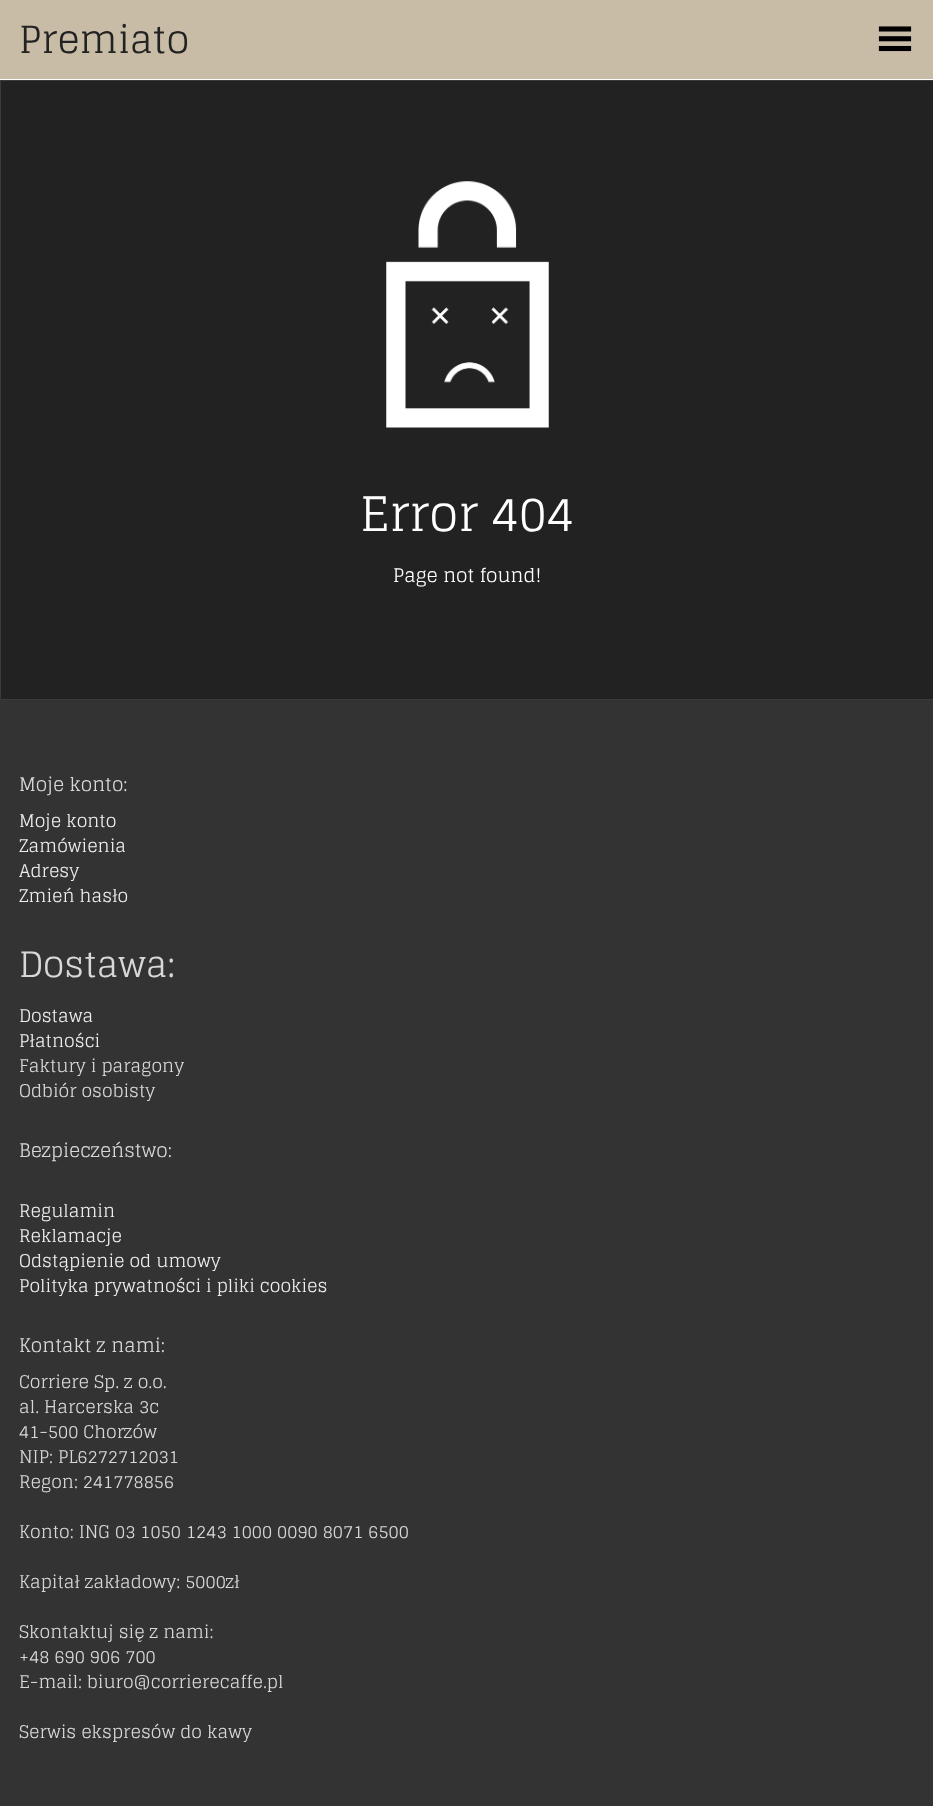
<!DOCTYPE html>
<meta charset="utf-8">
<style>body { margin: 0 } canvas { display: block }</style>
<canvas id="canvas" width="933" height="1806"></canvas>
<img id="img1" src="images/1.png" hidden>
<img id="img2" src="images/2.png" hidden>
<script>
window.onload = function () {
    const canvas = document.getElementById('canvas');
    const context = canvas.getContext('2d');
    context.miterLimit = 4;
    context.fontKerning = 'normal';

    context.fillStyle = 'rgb(34, 34, 34)';
    context.fillRect(0, 0, 933, 1806);
    context.fillStyle = 'rgb(200, 188, 167)';
    context.fillRect(0, 0, 933, 79);
    context.fillStyle = 'rgb(255, 255, 255)';
    context.fillRect(0, 79, 933, 1);
    context.drawImage(document.getElementById('img1'), 878, 26, 34, 26);
    context.strokeStyle = 'rgb(58, 58, 58)';
    context.strokeRect(0.5, 80.5, 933, 619);
    context.drawImage(document.getElementById('img2'), 386, 181, 163, 247);
    context.fillStyle = 'rgb(51, 51, 51)';
    context.fillRect(0, 700, 933, 1106);
    context.font = '37.5px Glegoo';
    context.fillStyle = 'rgb(34, 34, 34)';
    context.fillText('Premiato', 19, 53);
    context.font = '47.5px Glegoo';
    context.fillStyle = 'rgb(255, 255, 255)';
    context.fillText('Error 404', 360, 531);
    context.font = '18.75px Glegoo';
    context.fillText('Page not found!', 393, 582);
    context.fillStyle = 'rgb(216, 216, 216)';
    context.fillText('Moje konto:', 19, 791);
    context.font = '17.5px Glegoo';
    context.fillStyle = 'rgb(238, 238, 238)';
    context.fillText('Moje konto', 19, 827);
    context.fillText('Zamówienia', 19, 852);
    context.fillText('Adresy', 19, 877);
    context.fillText('Zmień hasło', 19, 902);
    context.font = '35px Glegoo';
    context.fillStyle = 'rgb(216, 216, 216)';
    context.fillText('Dostawa:', 19, 977);
    context.font = '17.5px Glegoo';
    context.fillStyle = 'rgb(238, 238, 238)';
    context.fillText('Dostawa', 19, 1022);
    context.fillText('Płatności', 19, 1047);
    context.fillStyle = 'rgb(216, 216, 216)';
    context.fillText('Faktury i paragony', 19, 1072);
    context.fillText('Odbiór osobisty', 19, 1097);
    context.font = '18.75px Glegoo';
    context.fillText('Bezpieczeństwo:', 19, 1157);
    context.font = '17.5px Glegoo';
    context.fillStyle = 'rgb(238, 238, 238)';
    context.fillText('Regulamin', 19, 1217);
    context.fillText('Reklamacje', 19, 1242);
    context.fillText('Odstąpienie od umowy', 19, 1267);
    context.fillText('Polityka prywatności i pliki cookies', 19, 1292);
    context.font = '18.75px Glegoo';
    context.fillStyle = 'rgb(216, 216, 216)';
    context.fillText('Kontakt z nami:', 19, 1352);
    context.font = '17.5px Glegoo';
    context.fillText('Corriere Sp. z o.o.', 19, 1388);
    context.fillText('al. Harcerska 3c', 19, 1413);
    context.fillText('41-500 Chorzów', 19, 1438);
    context.fillText('NIP: PL6272712031', 19, 1463);
    context.fillText('Regon: 241778856', 19, 1488);
    context.fillText('Konto: ING 03 1050 1243 1000 0090 8071 6500', 19, 1538);
    context.fillText('Kapitał zakładowy: 5000zł', 19, 1588);
    context.fillText('Skontaktuj się z nami:', 19, 1638);
    context.fillText('+48 690 906 700', 19, 1663);
    context.fillText('E-mail: biuro@corrierecaffe.pl', 19, 1688);
    context.fillText('Serwis ekspresów do kawy', 19, 1738);
};
</script>
